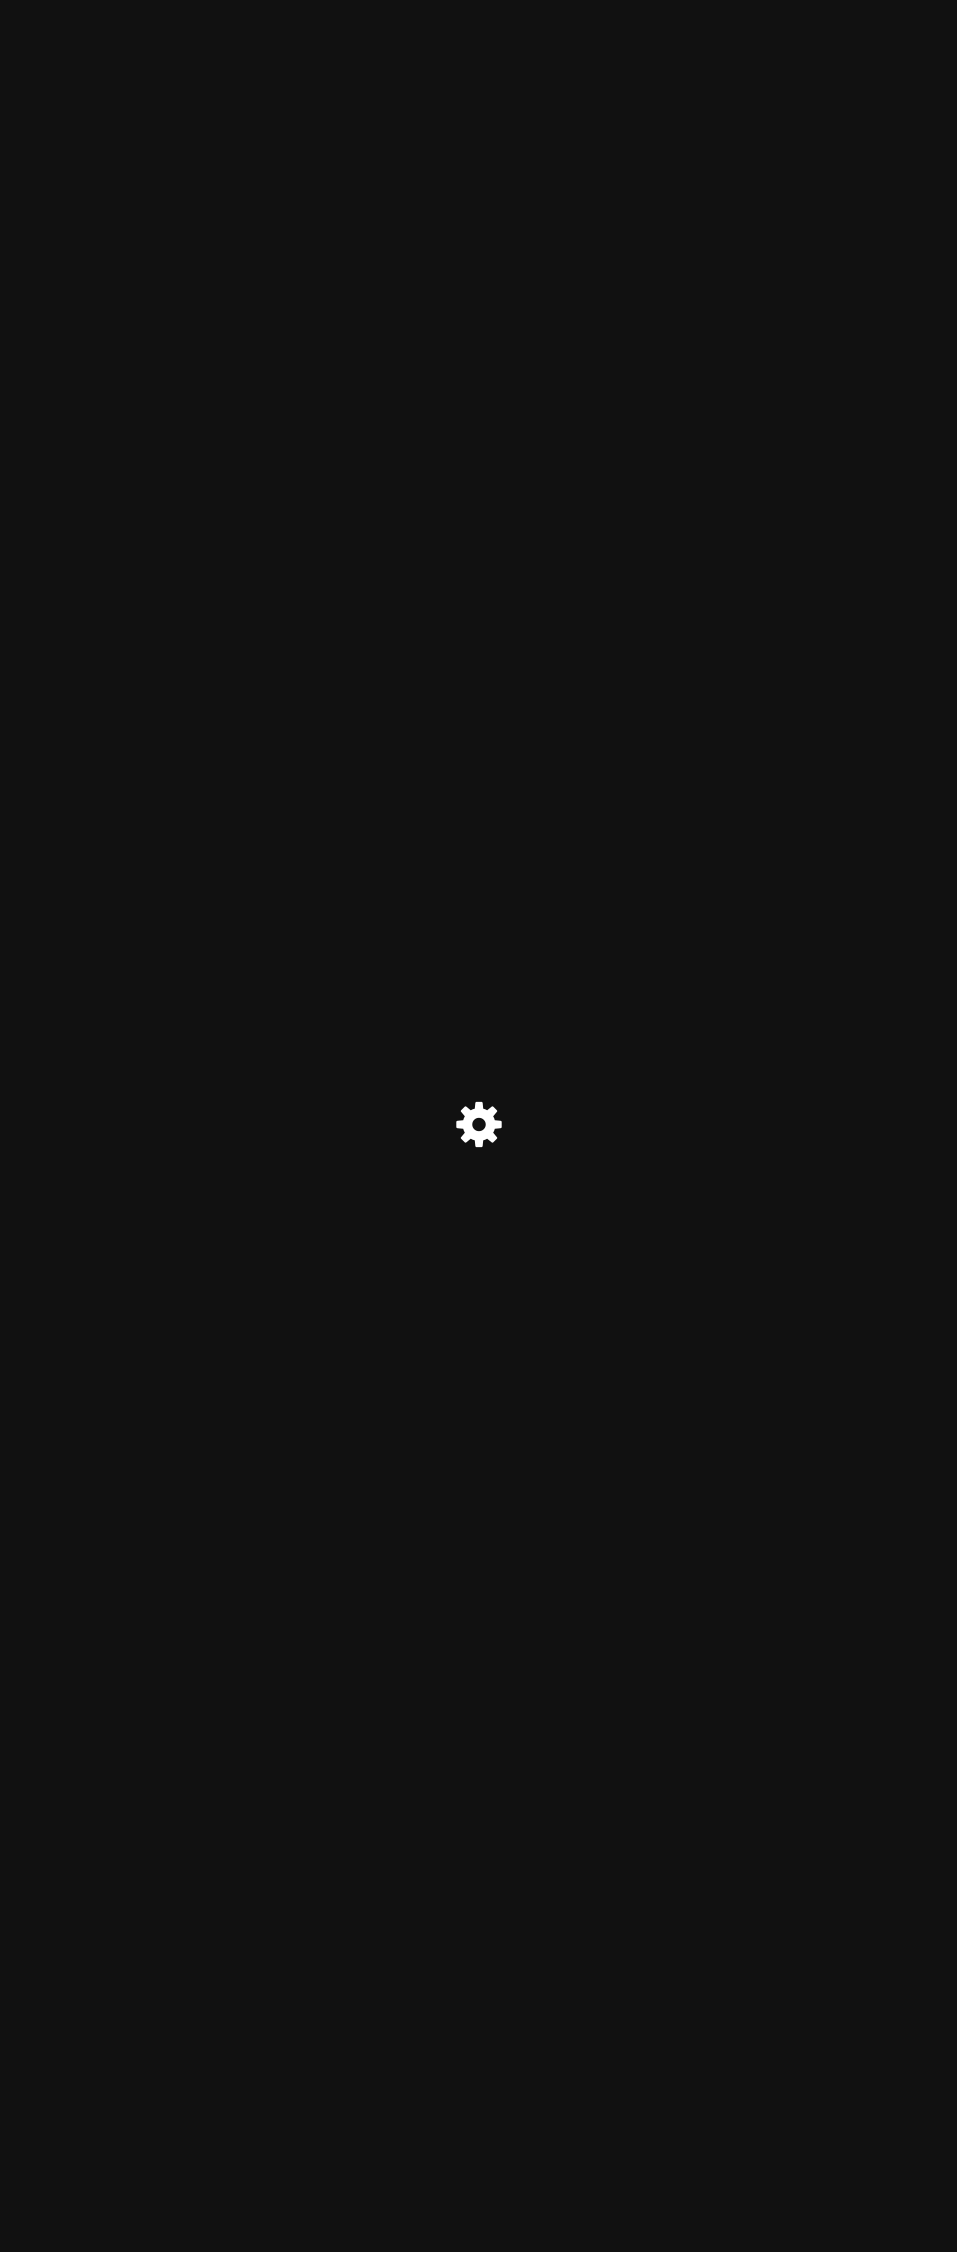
<!DOCTYPE html>
<meta charset="utf-8">
<style>body { margin: 0 } canvas { display: block }</style>
<canvas id="canvas" width="957" height="2252"></canvas>
<img id="img1" src="images/1.png" hidden>
<script>
window.onload = function () {
    const canvas = document.getElementById('canvas');
    const context = canvas.getContext('2d');
    context.miterLimit = 4;
    context.fontKerning = 'normal';

    context.fillStyle = 'rgb(17, 17, 17)';
    context.fillRect(0, 0, 957, 2252);
    context.drawImage(document.getElementById('img1'), 456, 1101, 46, 47);
};
</script>
